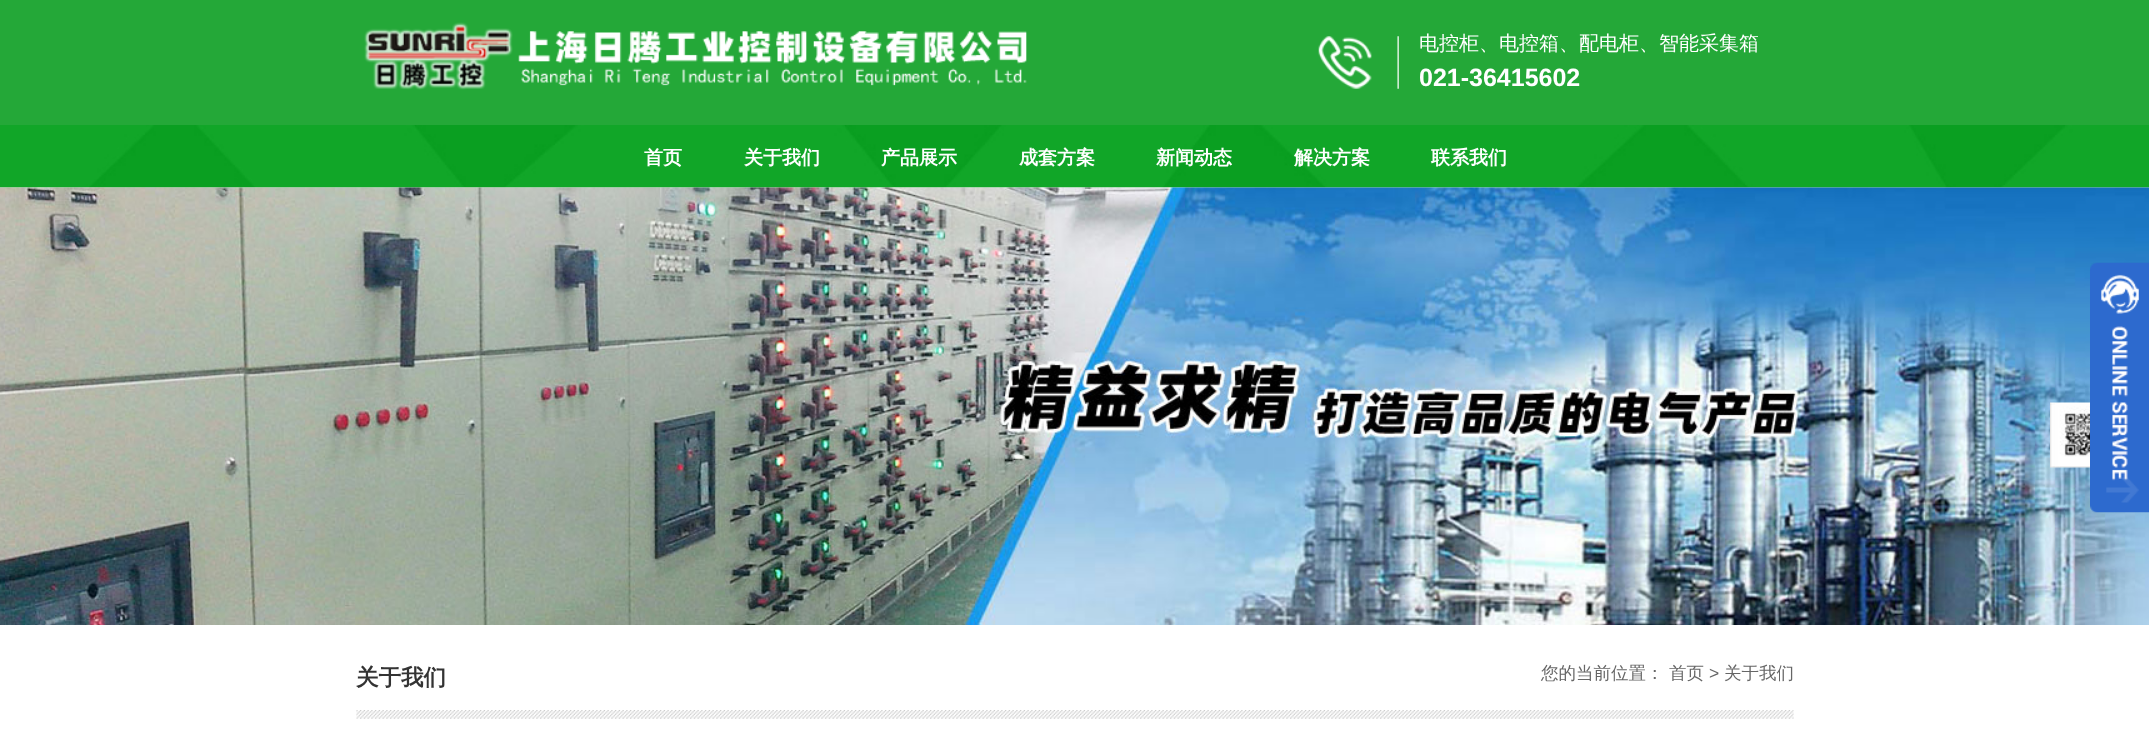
<!DOCTYPE html>
<meta charset="utf-8">
<style>body { margin: 0 } canvas { display: block }</style>
<canvas id="canvas" width="2149" height="730"></canvas>
<img id="img1" src="images/1.png" hidden>
<img id="img2" src="images/2.png" hidden>
<img id="img3" src="images/3.png" hidden>
<img id="img4" src="images/4.png" hidden>
<img id="img5" src="images/5.png" hidden>
<img id="img6" src="images/6.png" hidden>
<img id="img7" src="images/7.png" hidden>
<script>
window.onload = function () {
    const canvas = document.getElementById('canvas');
    const context = canvas.getContext('2d');
    context.miterLimit = 4;
    context.fontKerning = 'normal';

    context.fillStyle = 'rgb(255, 255, 255)';
    context.fillRect(0, 0, 2149, 730);
    context.fillStyle = 'rgb(36, 168, 56)';
    context.fillRect(0, 0, 2149, 125);
    context.drawImage(document.getElementById('img1'), 364, 22, 663, 68);
    context.drawImage(document.getElementById('img2'), 1318, 36, 81, 53);
    context.drawImage(document.getElementById('img3'), 0, 125, 2149, 63);
    context.drawImage(document.getElementById('img4'), 0, 187, 2149, 438);
    context.drawImage(document.getElementById('img5'), 2050, 402, 40, 66);
    context.drawImage(document.getElementById('img6'), 2090, 262, 59, 251);
    context.drawImage(document.getElementById('img7'), 356, 710, 1438, 9);
    context.font = '500 20px WenQuanYi Zen Hei';
    context.fillStyle = 'rgb(255, 255, 255)';
    context.fillText('电控柜、电控箱、配电柜、智能采集箱', 1419, 50);
    context.font = 'bold 25px Liberation Sans';
    context.fillText('021-36415602', 1419, 86);
    context.font = 'bold 19px WenQuanYi Zen Hei';
    context.fillText('首页', 644, 164);
    context.fillText('关于我们', 744, 164);
    context.fillText('产品展示', 881, 164);
    context.fillText('成套方案', 1019, 164);
    context.fillText('新闻动态', 1156, 164);
    context.fillText('解决方案', 1294, 164);
    context.fillText('联系我们', 1431, 164);
    context.font = 'bold 22.5px WenQuanYi Zen Hei';
    context.fillStyle = 'rgb(51, 51, 51)';
    context.fillText('关于我们', 356, 685);
    context.font = '500 17.5px WenQuanYi Zen Hei';
    context.fillStyle = 'rgb(102, 102, 102)';
    context.fillText('您的当前位置：', 1541, 679);
    context.fillText('首页', 1669, 679);
    context.font = '17.5px Liberation Sans';
    context.fillText('>', 1709, 679);
    context.font = '500 17.5px WenQuanYi Zen Hei';
    context.fillText('关于我们', 1724, 679);
};
</script>
